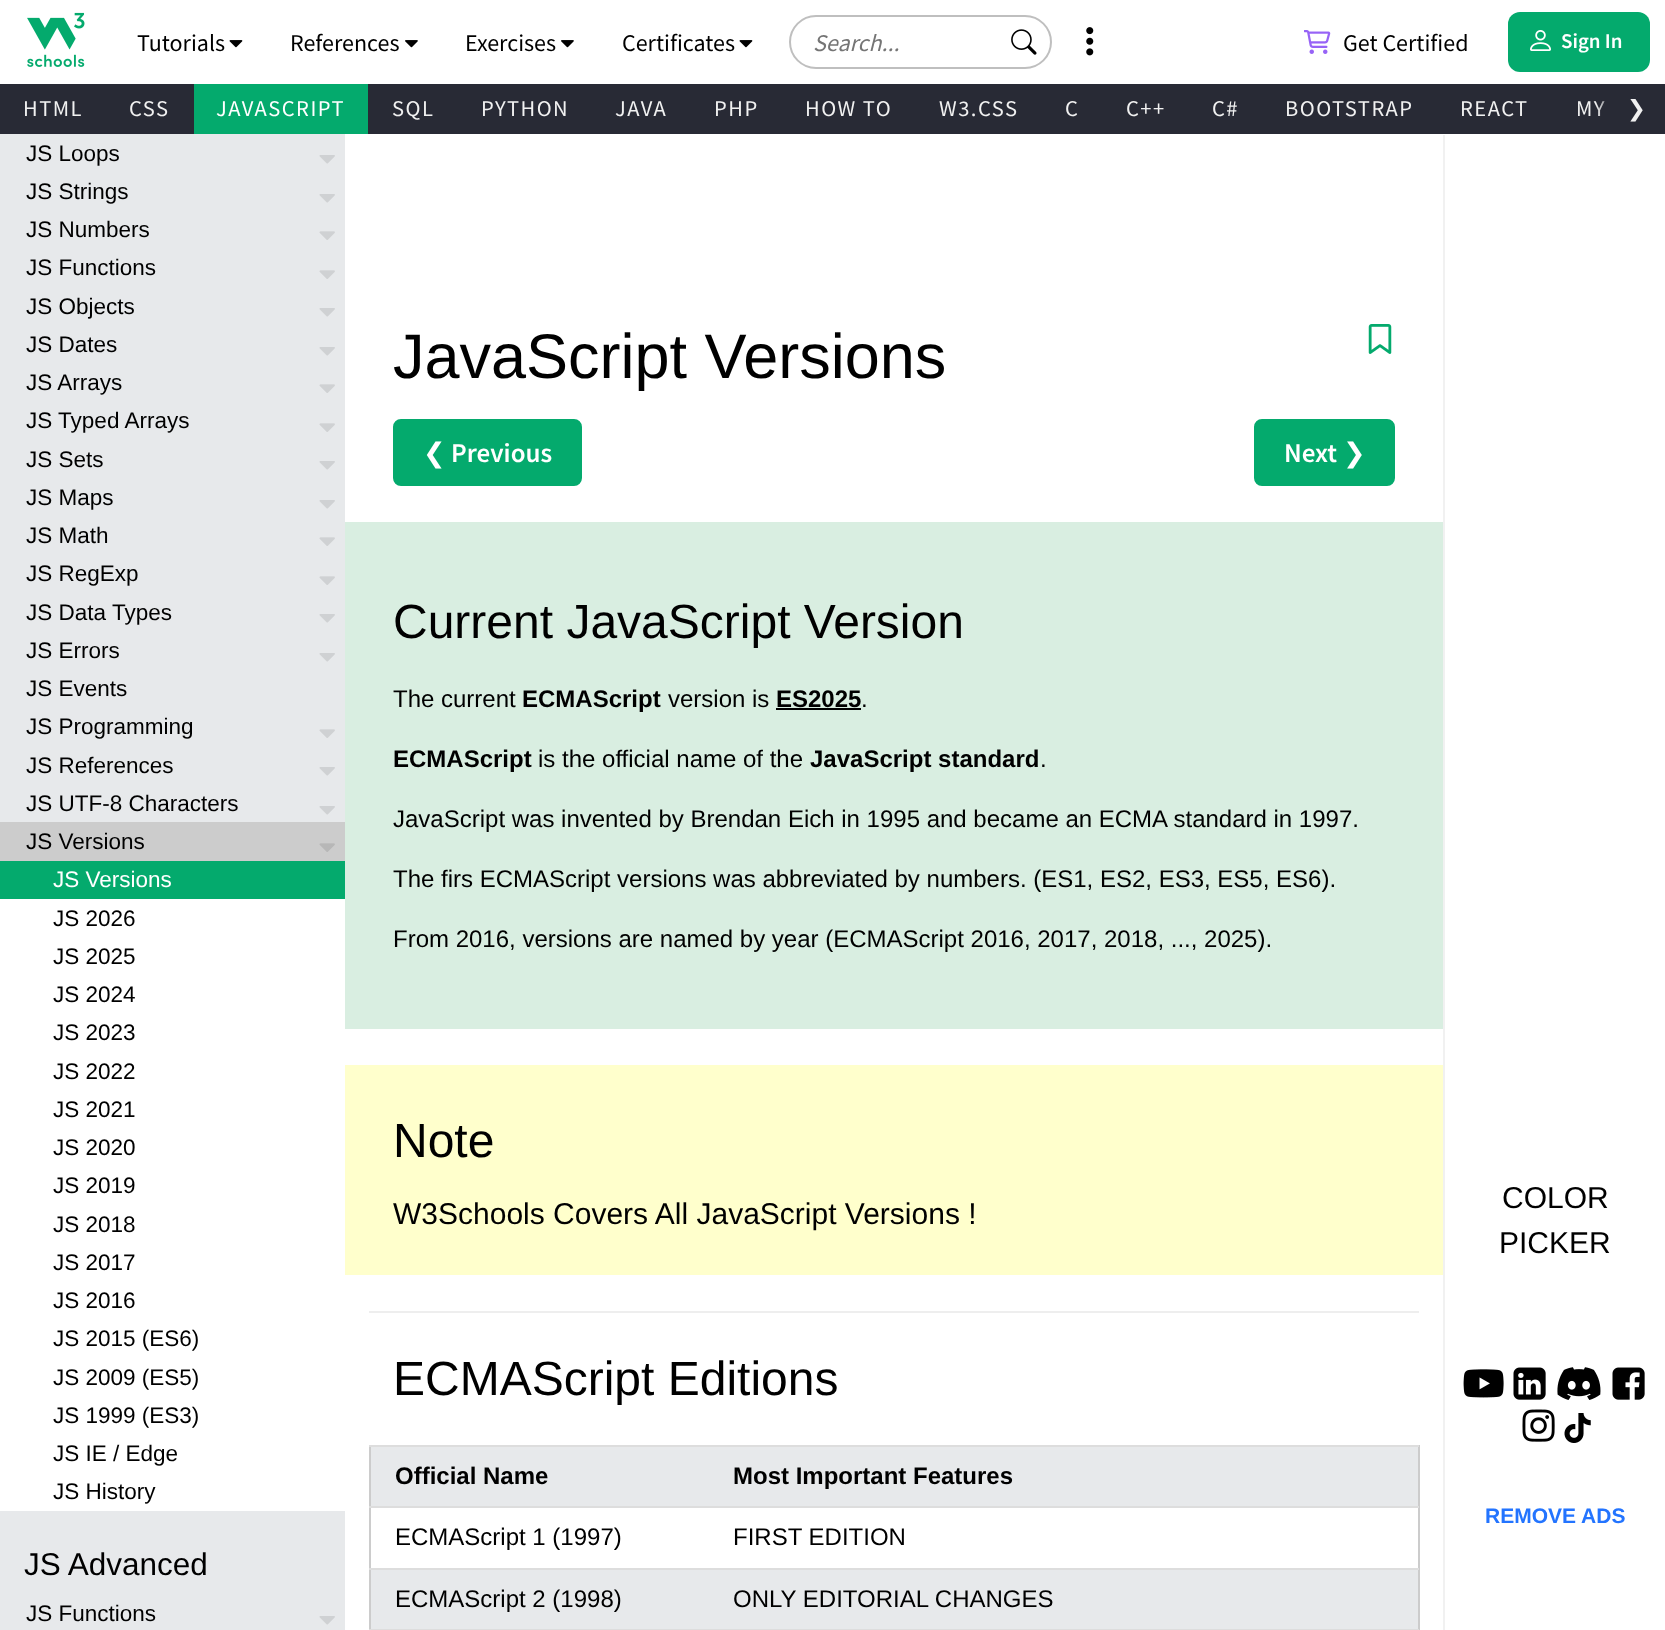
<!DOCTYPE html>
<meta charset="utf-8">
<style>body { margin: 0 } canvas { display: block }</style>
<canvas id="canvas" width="1665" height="1630"></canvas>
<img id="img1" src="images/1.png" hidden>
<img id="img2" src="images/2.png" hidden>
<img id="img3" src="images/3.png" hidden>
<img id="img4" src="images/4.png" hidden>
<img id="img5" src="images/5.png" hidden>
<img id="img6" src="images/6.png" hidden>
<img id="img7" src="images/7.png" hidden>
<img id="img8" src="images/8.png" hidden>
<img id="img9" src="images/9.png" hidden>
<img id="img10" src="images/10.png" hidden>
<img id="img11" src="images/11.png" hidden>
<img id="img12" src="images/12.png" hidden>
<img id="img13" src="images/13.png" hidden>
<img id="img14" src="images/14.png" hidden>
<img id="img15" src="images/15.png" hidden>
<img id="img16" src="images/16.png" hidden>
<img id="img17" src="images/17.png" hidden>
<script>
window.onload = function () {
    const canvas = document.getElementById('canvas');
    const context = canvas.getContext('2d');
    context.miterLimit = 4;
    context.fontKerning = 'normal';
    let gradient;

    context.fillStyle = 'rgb(255, 255, 255)';
    context.fillRect(0, 0, 1665, 1630);
    context.drawImage(document.getElementById('img1'), 27, 12, 58, 55);
    context.drawImage(document.getElementById('img2'), 229, 40, 14, 8);
    context.drawImage(document.getElementById('img3'), 405, 40, 13, 8);
    context.drawImage(document.getElementById('img3'), 561, 40, 13, 8);
    context.drawImage(document.getElementById('img2'), 739, 40, 14, 8);
    context.beginPath();
    context.roundRect(790, 16, 261, 52, 26);
    context.strokeStyle = 'rgb(191, 191, 191)';
    context.lineWidth = 2;
    context.stroke();
    context.drawImage(document.getElementById('img4'), 1011, 29, 26, 26);
    context.drawImage(document.getElementById('img5'), 1086, 27, 8, 29);
    context.drawImage(document.getElementById('img6'), 1304, 30, 27, 24);
    context.fillStyle = 'rgb(4, 170, 109)';
    context.beginPath();
    context.roundRect(1508, 12, 142, 60, 12);
    context.fill();
    context.drawImage(document.getElementById('img7'), 1530, 30, 21, 21);
    context.fillStyle = 'rgb(40, 42, 53)';
    context.fillRect(0, 84, 1617, 50);
    context.fillStyle = 'rgb(4, 170, 109)';
    context.fillRect(194, 84, 174, 50);
    context.fillStyle = 'rgb(231, 233, 235)';
    context.fillRect(0, 134, 345, 1496);
    context.drawImage(document.getElementById('img8'), 319, 155, 16, 9);
    context.drawImage(document.getElementById('img8'), 319, 194, 16, 9);
    context.drawImage(document.getElementById('img9'), 319, 231, 16, 9);
    context.drawImage(document.getElementById('img9'), 319, 270, 16, 9);
    context.drawImage(document.getElementById('img8'), 319, 308, 16, 9);
    context.drawImage(document.getElementById('img8'), 319, 347, 16, 9);
    context.drawImage(document.getElementById('img9'), 319, 384, 16, 9);
    context.drawImage(document.getElementById('img9'), 319, 423, 16, 9);
    context.drawImage(document.getElementById('img8'), 319, 461, 16, 9);
    context.drawImage(document.getElementById('img8'), 319, 500, 16, 9);
    context.drawImage(document.getElementById('img9'), 319, 537, 16, 9);
    context.drawImage(document.getElementById('img9'), 319, 576, 16, 9);
    context.drawImage(document.getElementById('img8'), 319, 614, 16, 9);
    context.drawImage(document.getElementById('img8'), 319, 653, 16, 9);
    context.drawImage(document.getElementById('img9'), 319, 729, 16, 9);
    context.drawImage(document.getElementById('img8'), 319, 767, 16, 9);
    context.drawImage(document.getElementById('img8'), 319, 806, 16, 9);
    context.fillStyle = 'rgb(204, 204, 204)';
    context.fillRect(0, 822, 345, 39);
    context.drawImage(document.getElementById('img10'), 319, 843, 16, 9);
    context.fillStyle = 'rgb(255, 255, 255)';
    context.fillRect(0, 899, 345, 612);
    context.fillStyle = 'rgb(4, 170, 109)';
    context.fillRect(0, 861, 345, 38);
    context.drawImage(document.getElementById('img8'), 319, 1616, 16, 9);
    context.fillStyle = 'rgb(241, 241, 241)';
    context.fillRect(1443, 135, 2, 1495);
    context.drawImage(document.getElementById('img11'), 1368, 324, 24, 30);
    context.fillStyle = 'rgb(4, 170, 109)';
    context.beginPath();
    context.roundRect(394, 420, 187, 65, 7);
    context.fill();
    context.strokeStyle = 'rgb(4, 170, 109)';
    context.stroke();
    context.beginPath();
    context.roundRect(1255, 420, 139, 65, 7);
    context.fill();
    context.stroke();
    context.fillStyle = 'rgb(217, 238, 225)';
    context.fillRect(345, 522, 1098, 507);
    context.fillStyle = 'rgb(0, 0, 0)';
    context.fillRect(776, 708, 85, 2);
    context.fillStyle = 'rgb(255, 255, 204)';
    context.fillRect(345, 1065, 1098, 210);
    context.fillStyle = 'rgb(238, 238, 238)';
    context.fillRect(369, 1311, 1050, 2);
    context.fillStyle = 'rgb(204, 204, 204)';
    context.fillRect(1418, 1445, 2, 185);
    context.fillRect(369, 1445, 2, 185);
    context.fillStyle = 'rgb(221, 221, 221)';
    context.fillRect(369, 1445, 1050, 2);
    context.fillStyle = 'rgb(231, 233, 235)';
    context.fillRect(371, 1447, 1047, 59);
    context.fillStyle = 'rgb(221, 221, 221)';
    context.fillRect(369, 1506, 1050, 2);
    context.fillRect(369, 1568, 1050, 2);
    context.fillStyle = 'rgb(231, 233, 235)';
    context.fillRect(371, 1570, 1047, 59);
    context.fillStyle = 'rgb(221, 221, 221)';
    context.fillRect(369, 1629, 1050, 1);
    context.drawImage(document.getElementById('img12'), 1463, 1369, 41, 29);
    context.drawImage(document.getElementById('img13'), 1513, 1367, 33, 33);
    context.drawImage(document.getElementById('img14'), 1557, 1367, 44, 33);
    context.drawImage(document.getElementById('img15'), 1612, 1367, 33, 33);
    context.drawImage(document.getElementById('img16'), 1522, 1409, 33, 33);
    context.drawImage(document.getElementById('img17'), 1564, 1413, 27, 30);
    context.font = '24px Source Sans Pro';
    context.fillStyle = 'rgb(0, 0, 0)';
    context.fillText('Tutorials', 137, 51);
    context.fillText('References', 290, 51);
    context.fillText('Exercises', 465, 51);
    context.fillText('Certificates', 622, 51);
    context.font = 'italic 24px Source Sans Pro';
    context.fillStyle = 'rgb(117, 117, 117)';
    context.fillText('Search...', 813, 51);
    context.font = '24px Source Sans Pro';
    context.fillStyle = 'rgb(0, 0, 0)';
    context.fillText('Get Certified', 1343, 51);
    context.font = '600 21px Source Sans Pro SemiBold';
    context.fillStyle = 'rgb(255, 255, 255)';
    context.fillText('Sign In', 1561, 48);
    context.letterSpacing = '1.5px';
    context.font = '22.5px Source Sans Pro';
    context.fillStyle = 'rgb(241, 241, 241)';
    context.fillText('HTML', 23, 116);
    context.fillText('CSS', 129, 116);
    context.fillStyle = 'rgb(255, 255, 255)';
    context.fillText('JAVASCRIPT', 216, 116);
    context.fillStyle = 'rgb(241, 241, 241)';
    context.fillText('SQL', 392, 116);
    context.fillText('PYTHON', 481, 116);
    context.fillText('JAVA', 615, 116);
    context.fillText('PHP', 714, 116);
    context.fillText('HOW TO', 805, 116);
    context.fillText('W3.CSS', 939, 116);
    context.fillText('C', 1065, 116);
    context.fillText('C++', 1126, 116);
    context.fillText('C#', 1212, 116);
    context.fillText('BOOTSTRAP', 1285, 116);
    context.fillText('REACT', 1460, 116);
    context.fillText('MY', 1576, 116);
    gradient = context.createLinearGradient(1665, 109, 1596, 109);
    gradient.addColorStop(0.7, 'rgb(40, 42, 53)');
    gradient.addColorStop(1, 'rgba(40, 42, 53, 0)');
    context.fillStyle = gradient;
    context.fillRect(1596, 84, 69, 50);
    context.font = '22.5px DejaVu Sans';
    context.fillStyle = 'rgb(241, 241, 241)';
    context.fillText('❯', 1627, 116);
    context.letterSpacing = '0px';
    context.font = '22.5px Liberation Sans';
    context.fillStyle = 'rgb(0, 0, 0)';
    context.fillText('JS Loops', 26, 161);
    context.fillText('JS Strings', 26, 199);
    context.fillText('JS Numbers', 26, 237);
    context.fillText('JS Functions', 26, 275);
    context.fillText('JS Objects', 26, 314);
    context.fillText('JS Dates', 26, 352);
    context.fillText('JS Arrays', 26, 390);
    context.fillText('JS Typed Arrays', 26, 428);
    context.fillText('JS Sets', 26, 467);
    context.fillText('JS Maps', 26, 505);
    context.fillText('JS Math', 26, 543);
    context.fillText('JS RegExp', 26, 581);
    context.fillText('JS Data Types', 26, 620);
    context.fillText('JS Errors', 26, 658);
    context.fillText('JS Events', 26, 696);
    context.fillText('JS Programming', 26, 734);
    context.fillText('JS References', 26, 773);
    context.fillText('JS UTF-8 Characters', 26, 811);
    context.fillText('JS Versions', 26, 849);
    context.fillStyle = 'rgb(255, 255, 255)';
    context.fillText('JS Versions', 53, 887);
    context.fillStyle = 'rgb(0, 0, 0)';
    context.fillText('JS 2026', 53, 926);
    context.fillText('JS 2025', 53, 964);
    context.fillText('JS 2024', 53, 1002);
    context.fillText('JS 2023', 53, 1040);
    context.fillText('JS 2022', 53, 1079);
    context.fillText('JS 2021', 53, 1117);
    context.fillText('JS 2020', 53, 1155);
    context.fillText('JS 2019', 53, 1193);
    context.fillText('JS 2018', 53, 1232);
    context.fillText('JS 2017', 53, 1270);
    context.fillText('JS 2016', 53, 1308);
    context.fillText('JS 2015 (ES6)', 53, 1346);
    context.fillText('JS 2009 (ES5)', 53, 1385);
    context.fillText('JS 1999 (ES3)', 53, 1423);
    context.fillText('JS IE / Edge', 53, 1461);
    context.fillText('JS History', 53, 1499);
    context.font = '31.5px Liberation Sans';
    context.fillText('JS Advanced', 24, 1575);
    context.font = '22.5px Liberation Sans';
    context.fillText('JS Functions', 26, 1621);
    context.font = '63px Liberation Sans';
    context.fillText('JavaScript Versions', 393, 378);
    context.font = '27px DejaVu Sans';
    context.fillStyle = 'rgb(255, 255, 255)';
    context.fillText('❮', 423, 462);
    context.font = '600 27px Source Sans Pro SemiBold';
    context.fillText('Previous', 451, 462);
    context.fillText('Next', 1284, 462);
    context.font = '27px DejaVu Sans';
    context.fillText('❯', 1343, 462);
    context.font = '48px Liberation Sans';
    context.fillStyle = 'rgb(0, 0, 0)';
    context.fillText('Current JavaScript Version', 393, 638);
    context.font = '24px Liberation Sans';
    context.fillText('The current', 393, 707);
    context.font = 'bold 24px Liberation Sans';
    context.fillText('ECMAScript', 522, 707);
    context.font = '24px Liberation Sans';
    context.fillText('version is', 668, 707);
    context.font = 'bold 24px Liberation Sans';
    context.fillText('ES2025', 776, 707);
    context.font = '24px Liberation Sans';
    context.fillText('.', 861, 707);
    context.font = 'bold 24px Liberation Sans';
    context.fillText('ECMAScript', 393, 767);
    context.font = '24px Liberation Sans';
    context.fillText('is the official name of the', 538, 767);
    context.font = 'bold 24px Liberation Sans';
    context.fillText('JavaScript standard', 810, 767);
    context.font = '24px Liberation Sans';
    context.fillText('.', 1040, 767);
    context.fillText('JavaScript was invented by Brendan Eich in 1995 and became an ECMA standard in 1997.', 393, 827);
    context.fillText('The firs ECMAScript versions was abbreviated by numbers. (ES1, ES2, ES3, ES5, ES6).', 393, 887);
    context.fillText('From 2016, versions are named by year (ECMAScript 2016, 2017, 2018, ..., 2025).', 393, 947);
    context.font = '48px Liberation Sans';
    context.fillText('Note', 393, 1157);
    context.font = '30px Liberation Sans';
    context.fillText('W3Schools Covers All JavaScript Versions !', 393, 1224);
    context.font = '48px Liberation Sans';
    context.fillText('ECMAScript Editions', 393, 1395);
    context.font = 'bold 24px Liberation Sans';
    context.fillText('Official Name', 395, 1484);
    context.fillText('Most Important Features', 733, 1484);
    context.font = '24px Liberation Sans';
    context.fillText('ECMAScript 1 (1997)', 395, 1545);
    context.fillText('FIRST EDITION', 733, 1545);
    context.fillText('ECMAScript 2 (1998)', 395, 1607);
    context.fillText('ONLY EDITORIAL CHANGES', 733, 1607);
    context.font = '30px Liberation Sans';
    context.fillText('COLOR', 1502, 1208);
    context.fillText('PICKER', 1499, 1253);
    context.font = 'bold 21px Liberation Sans';
    context.fillStyle = 'rgb(35, 116, 255)';
    context.fillText('REMOVE ADS', 1485, 1523);
};
</script>
